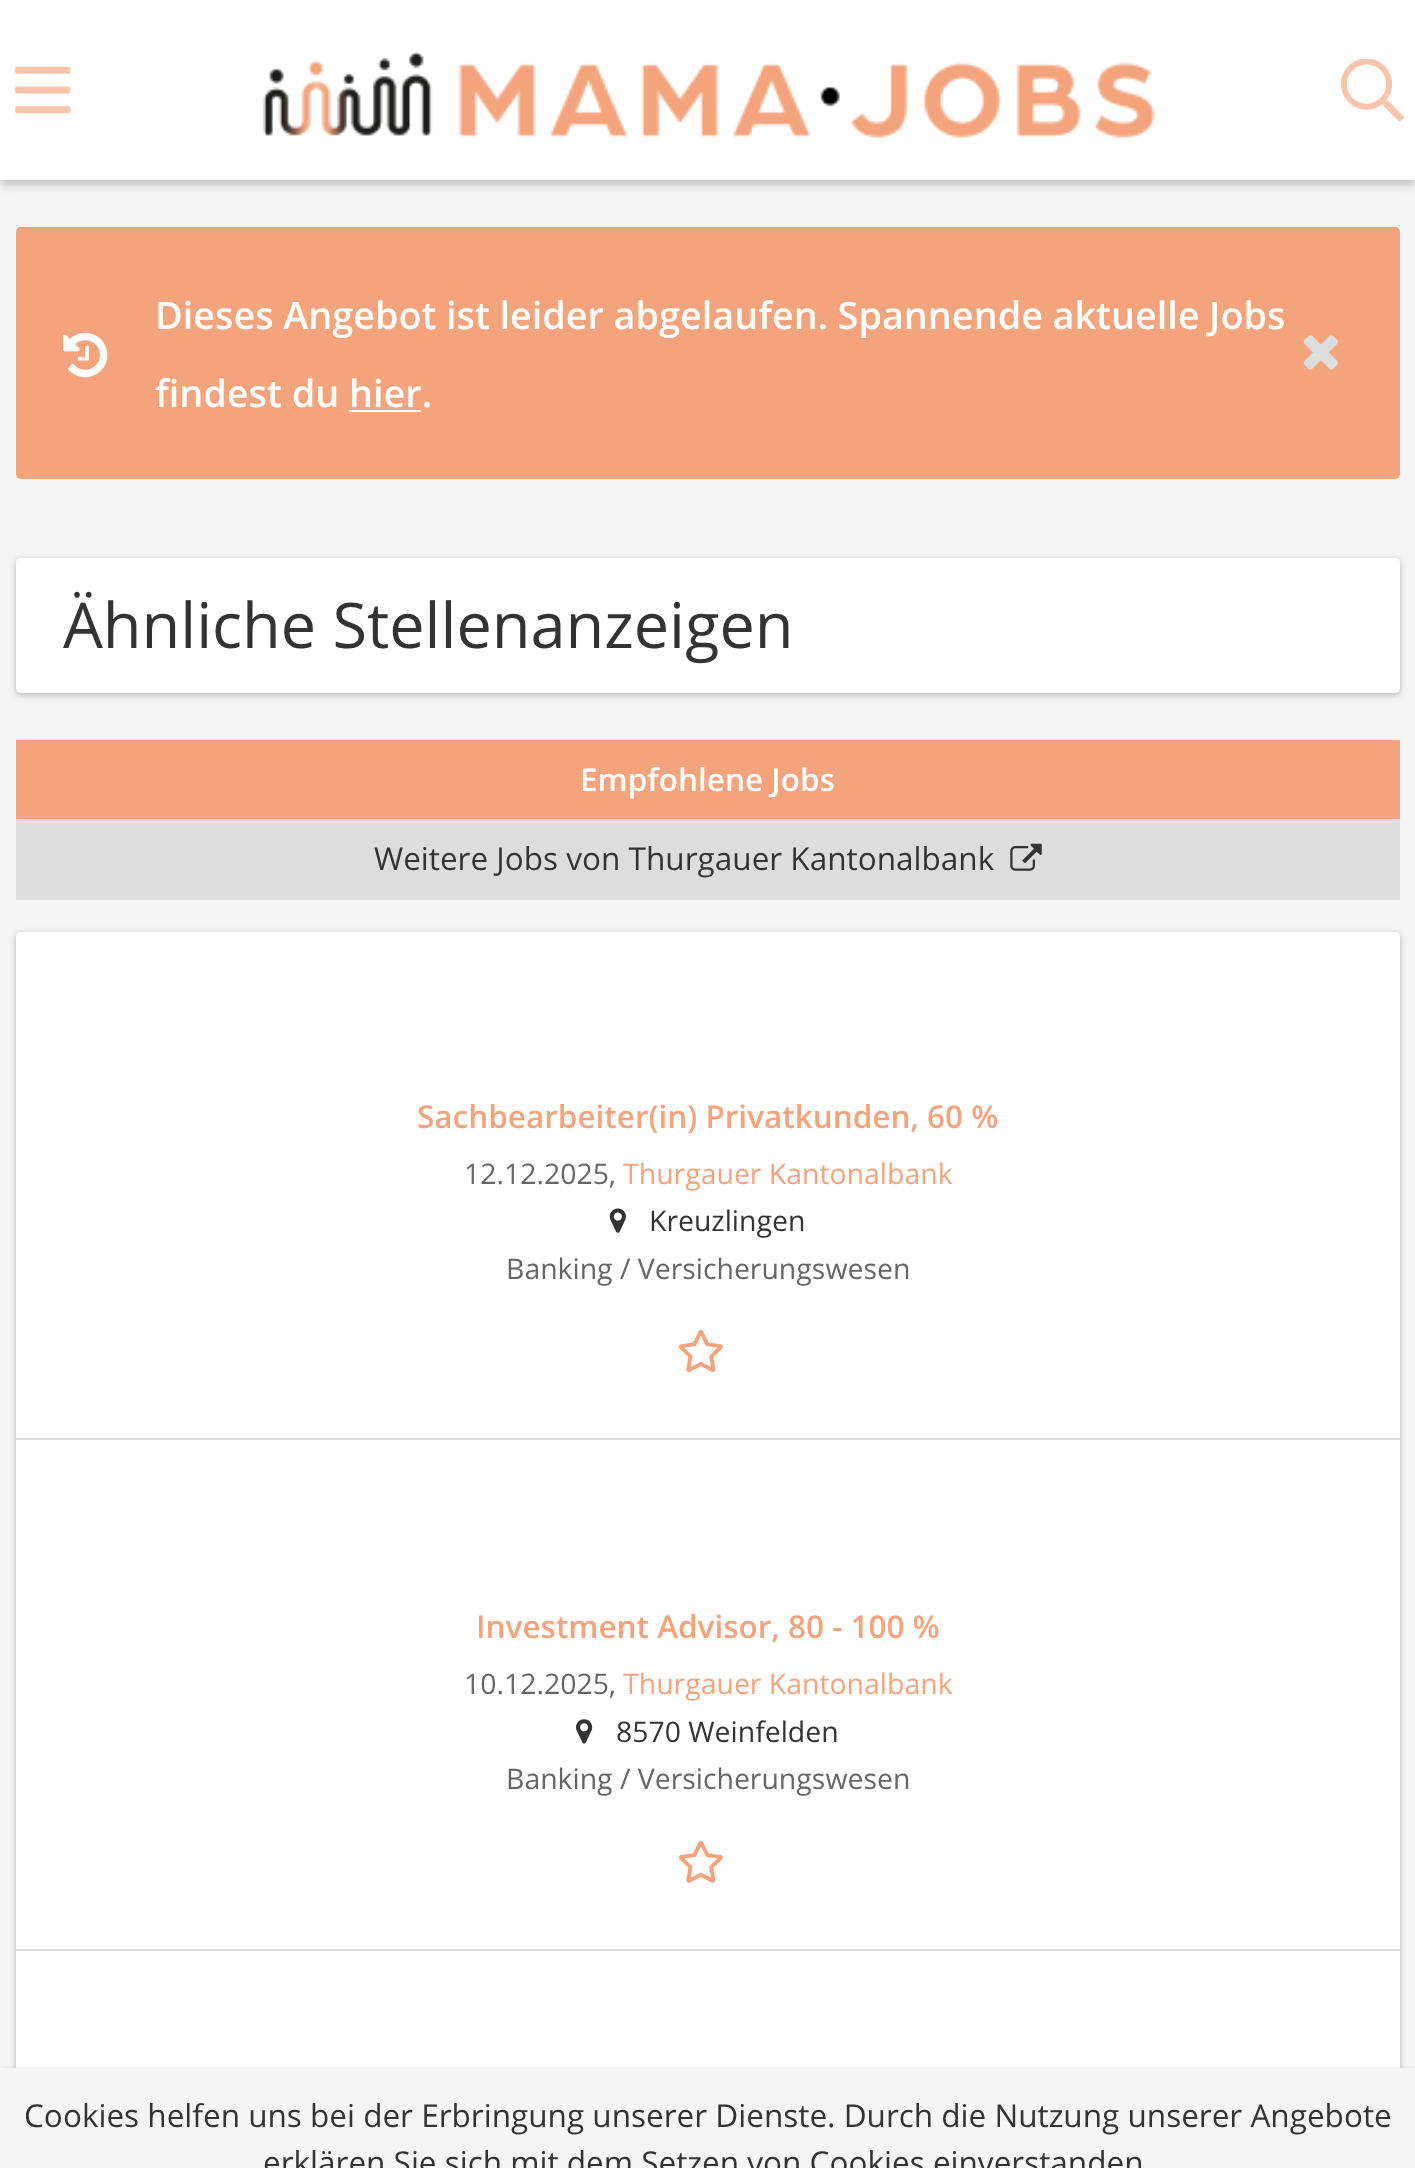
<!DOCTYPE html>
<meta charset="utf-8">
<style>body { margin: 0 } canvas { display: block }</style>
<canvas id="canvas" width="1415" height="2168"></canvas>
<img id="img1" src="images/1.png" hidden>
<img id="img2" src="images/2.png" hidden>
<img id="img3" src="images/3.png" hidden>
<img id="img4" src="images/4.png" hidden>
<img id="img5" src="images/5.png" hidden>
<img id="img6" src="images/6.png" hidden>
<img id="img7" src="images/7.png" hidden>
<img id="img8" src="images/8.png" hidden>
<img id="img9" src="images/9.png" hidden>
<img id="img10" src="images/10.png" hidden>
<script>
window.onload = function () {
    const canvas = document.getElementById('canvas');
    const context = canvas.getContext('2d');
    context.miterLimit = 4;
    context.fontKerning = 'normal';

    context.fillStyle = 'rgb(245, 245, 245)';
    context.fillRect(0, 0, 1415, 2168);
    context.fillStyle = 'rgba(145, 145, 145, 0.5)';
    context.filter = 'blur(4.5px)';
    context.beginPath();
    context.rect(0, 5, 1415, 180);
    context.fill();
    context.filter = 'none';
    context.fillStyle = 'rgb(255, 255, 255)';
    context.fillRect(0, 0, 1415, 180);
    context.drawImage(document.getElementById('img1'), 15, 66, 56, 48);
    context.drawImage(document.getElementById('img2'), 262, 51, 893, 87);
    context.drawImage(document.getElementById('img3'), 1341, 58, 63, 64);
    context.fillStyle = 'rgb(244, 164, 125)';
    context.beginPath();
    context.roundRect(16, 227, 1384, 252, 5);
    context.fill();
    context.drawImage(document.getElementById('img4'), 63, 332, 45, 46);
    context.fillStyle = 'rgb(255, 255, 255)';
    context.fillRect(349, 410, 72, 2);
    context.drawImage(document.getElementById('img5'), 1303, 335, 35, 35);
    context.fillStyle = 'rgba(0, 0, 0, 0.25)';
    context.filter = 'blur(3.5px)';
    context.beginPath();
    context.roundRect(16, 560, 1384, 135, 5);
    context.fill();
    context.filter = 'none';
    context.fillStyle = 'rgb(255, 255, 255)';
    context.beginPath();
    context.roundRect(16, 558, 1384, 135, 5);
    context.fill();
    context.fillStyle = 'rgb(244, 164, 125)';
    context.fillRect(16, 740, 1384, 79);
    context.fillStyle = 'rgb(221, 221, 221)';
    context.fillRect(16, 819, 1384, 81);
    context.drawImage(document.getElementById('img6'), 1010, 843, 32, 28);
    context.fillStyle = 'rgba(0, 0, 0, 0.25)';
    context.filter = 'blur(3.5px)';
    context.beginPath();
    context.roundRect(16, 934, 1384, 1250, 5);
    context.fill();
    context.filter = 'none';
    context.fillStyle = 'rgb(255, 255, 255)';
    context.beginPath();
    context.roundRect(16, 932, 1384, 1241, 5);
    context.fill();
    context.drawImage(document.getElementById('img7'), 609, 1208, 17, 25);
    context.drawImage(document.getElementById('img8'), 678, 1330, 45, 43);
    context.fillStyle = 'rgb(221, 221, 221)';
    context.fillRect(16, 1438, 1384, 2);
    context.drawImage(document.getElementById('img9'), 576, 1719, 17, 25);
    context.drawImage(document.getElementById('img10'), 678, 1840, 45, 43);
    context.fillRect(16, 1949, 1384, 2);
    context.fillStyle = 'rgb(168, 168, 168)';
    context.filter = 'blur(2px)';
    context.beginPath();
    context.rect(2, 2070, 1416, 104);
    context.fill();
    context.filter = 'none';
    context.fillStyle = 'rgb(245, 245, 245)';
    context.fillRect(0, 2068, 1415, 100);
    context.wordSpacing = '-0.25px';
    context.font = '600 37.8px Open Sans';
    context.fillStyle = 'rgb(255, 255, 255)';
    context.fillText('Dieses Angebot ist leider abgelaufen. Spannende aktuelle Jobs', 155, 329);
    context.wordSpacing = '0px';
    context.fillText('findest du hier.', 155, 407);
    context.font = '63px Open Sans';
    context.fillStyle = 'rgb(51, 51, 51)';
    context.fillText('Ähnliche Stellenanzeigen', 63, 648);
    context.font = '600 31.5px Open Sans';
    context.fillStyle = 'rgb(255, 255, 255)';
    context.fillText('Empfohlene Jobs', 580, 791);
    context.font = '31.5px Open Sans';
    context.fillStyle = 'rgb(51, 51, 51)';
    context.fillText('Weitere Jobs von Thurgauer Kantonalbank', 374, 870);
    context.font = '600 31.5px Open Sans';
    context.fillStyle = 'rgb(244, 164, 125)';
    context.fillText('Sachbearbeiter(in) Privatkunden, 60 %', 417, 1128);
    context.font = '28.4px Open Sans';
    context.fillStyle = 'rgb(102, 102, 102)';
    context.fillText('12.12.2025,', 464, 1184);
    context.fillStyle = 'rgb(244, 164, 125)';
    context.fillText('Thurgauer Kantonalbank', 623, 1184);
    context.fillStyle = 'rgb(51, 51, 51)';
    context.fillText('Kreuzlingen', 649, 1231);
    context.fillStyle = 'rgb(102, 102, 102)';
    context.fillText('Banking / Versicherungswesen', 506, 1279);
    context.font = '600 31.5px Open Sans';
    context.fillStyle = 'rgb(244, 164, 125)';
    context.fillText('Investment Advisor, 80 - 100 %', 476, 1638);
    context.font = '28.4px Open Sans';
    context.fillStyle = 'rgb(102, 102, 102)';
    context.fillText('10.12.2025,', 464, 1694);
    context.fillStyle = 'rgb(244, 164, 125)';
    context.fillText('Thurgauer Kantonalbank', 623, 1694);
    context.fillStyle = 'rgb(51, 51, 51)';
    context.fillText('8570 Weinfelden', 616, 1742);
    context.fillStyle = 'rgb(102, 102, 102)';
    context.fillText('Banking / Versicherungswesen', 506, 1789);
    context.font = '31.5px Open Sans';
    context.fillStyle = 'rgb(51, 51, 51)';
    context.fillText('Cookies helfen uns bei der Erbringung unserer Dienste. Durch die Nutzung unserer Angebote', 24, 2127);
    context.fillText('erklären Sie sich mit dem Setzen von Cookies einverstanden', 263, 2174);
};
</script>
